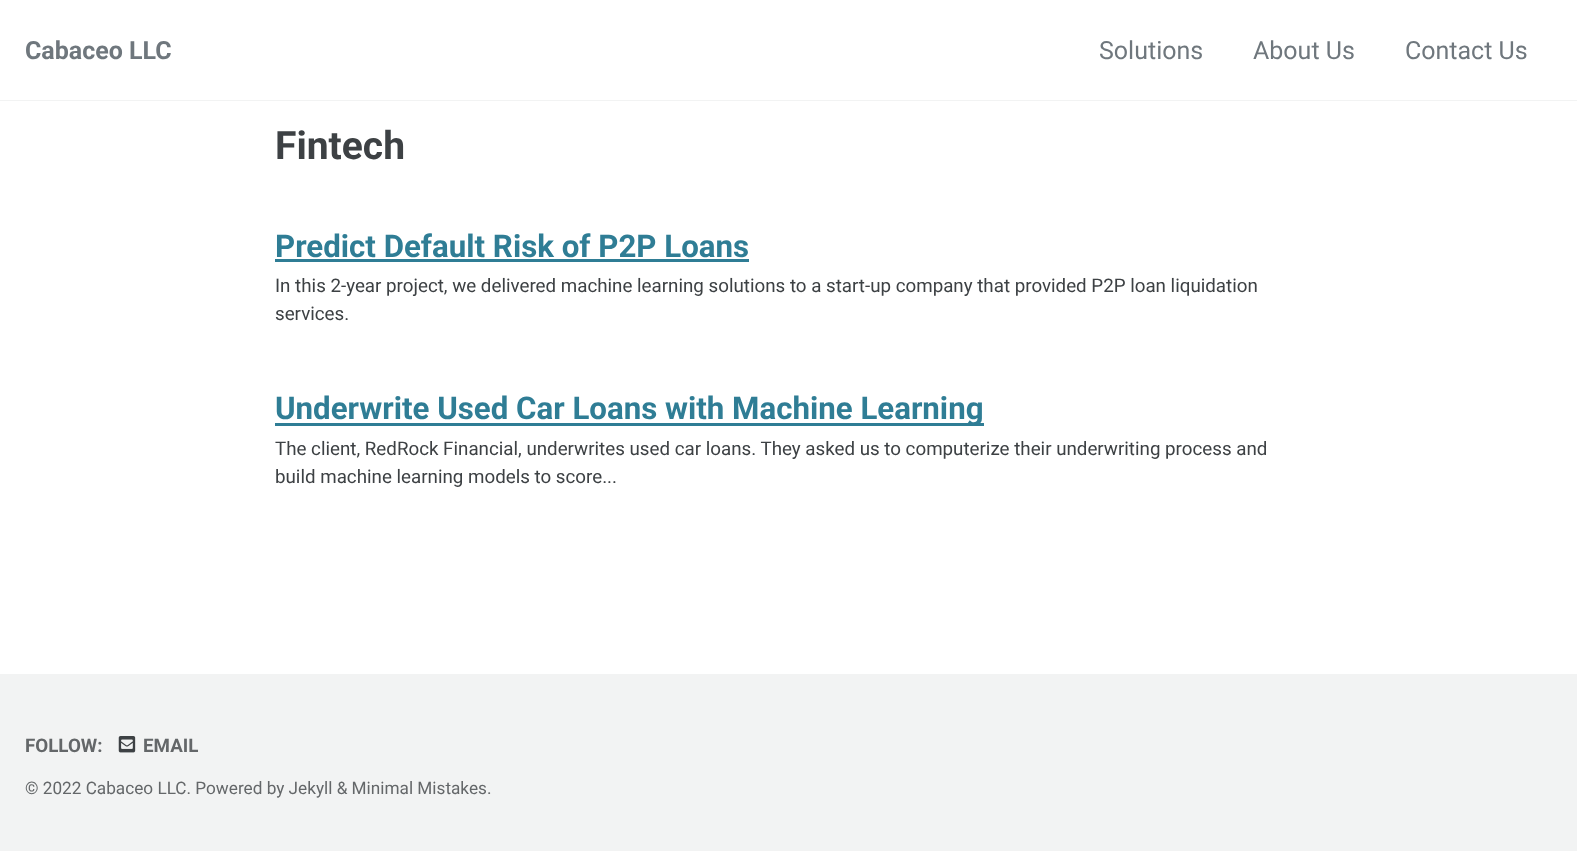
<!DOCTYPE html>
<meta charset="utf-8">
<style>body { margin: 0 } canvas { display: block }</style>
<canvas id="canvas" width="1577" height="851"></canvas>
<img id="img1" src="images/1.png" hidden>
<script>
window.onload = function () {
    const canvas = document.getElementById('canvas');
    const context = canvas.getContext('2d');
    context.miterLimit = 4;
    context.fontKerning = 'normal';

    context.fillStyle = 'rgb(255, 255, 255)';
    context.fillRect(0, 0, 1577, 851);
    context.fillStyle = 'rgb(242, 243, 243)';
    context.fillRect(0, 100, 1577, 1);
    context.fillStyle = 'rgb(47, 125, 149)';
    context.fillRect(275, 259, 474, 3);
    context.fillRect(275, 423, 709, 3);
    context.fillStyle = 'rgb(242, 243, 243)';
    context.fillRect(0, 674, 1577, 177);
    context.drawImage(document.getElementById('img1'), 118, 736, 18, 17);
    context.font = 'bold 25px Roboto';
    context.fillStyle = 'rgb(111, 119, 125)';
    context.fillText('Cabaceo LLC', 25, 59);
    context.font = '25px Roboto';
    context.fillText('Solutions', 1099, 59);
    context.fillText('About Us', 1253, 59);
    context.fillText('Contact Us', 1405, 59);
    context.font = 'bold 39px Roboto';
    context.fillStyle = 'rgb(61, 65, 68)';
    context.fillText('Fintech', 275, 159);
    context.font = 'bold 31.25px Roboto';
    context.fillStyle = 'rgb(47, 125, 149)';
    context.fillText('Predict Default Risk of P2P Loans', 275, 257);
    context.font = '18.75px Roboto';
    context.fillStyle = 'rgb(61, 65, 68)';
    context.fillText('In this 2-year project, we delivered machine learning solutions to a start-up company that provided P2P loan liquidation', 275, 292);
    context.fillText('services.', 275, 320);
    context.font = 'bold 31.25px Roboto';
    context.fillStyle = 'rgb(47, 125, 149)';
    context.fillText('Underwrite Used Car Loans with Machine Learning', 275, 419);
    context.font = '18.75px Roboto';
    context.fillStyle = 'rgb(61, 65, 68)';
    context.fillText('The client, RedRock Financial, underwrites used car loans. They asked us to computerize their underwriting process and', 275, 455);
    context.fillText('build machine learning models to score...', 275, 483);
    context.font = 'bold 18.75px Roboto';
    context.fillStyle = 'rgb(100, 103, 105)';
    context.fillText('FOLLOW:', 25, 752);
    context.fillText('EMAIL', 143, 752);
    context.font = '17.2px Roboto';
    context.fillText('© 2022 Cabaceo LLC. Powered by Jekyll & Minimal Mistakes.', 25, 794);
};
</script>
